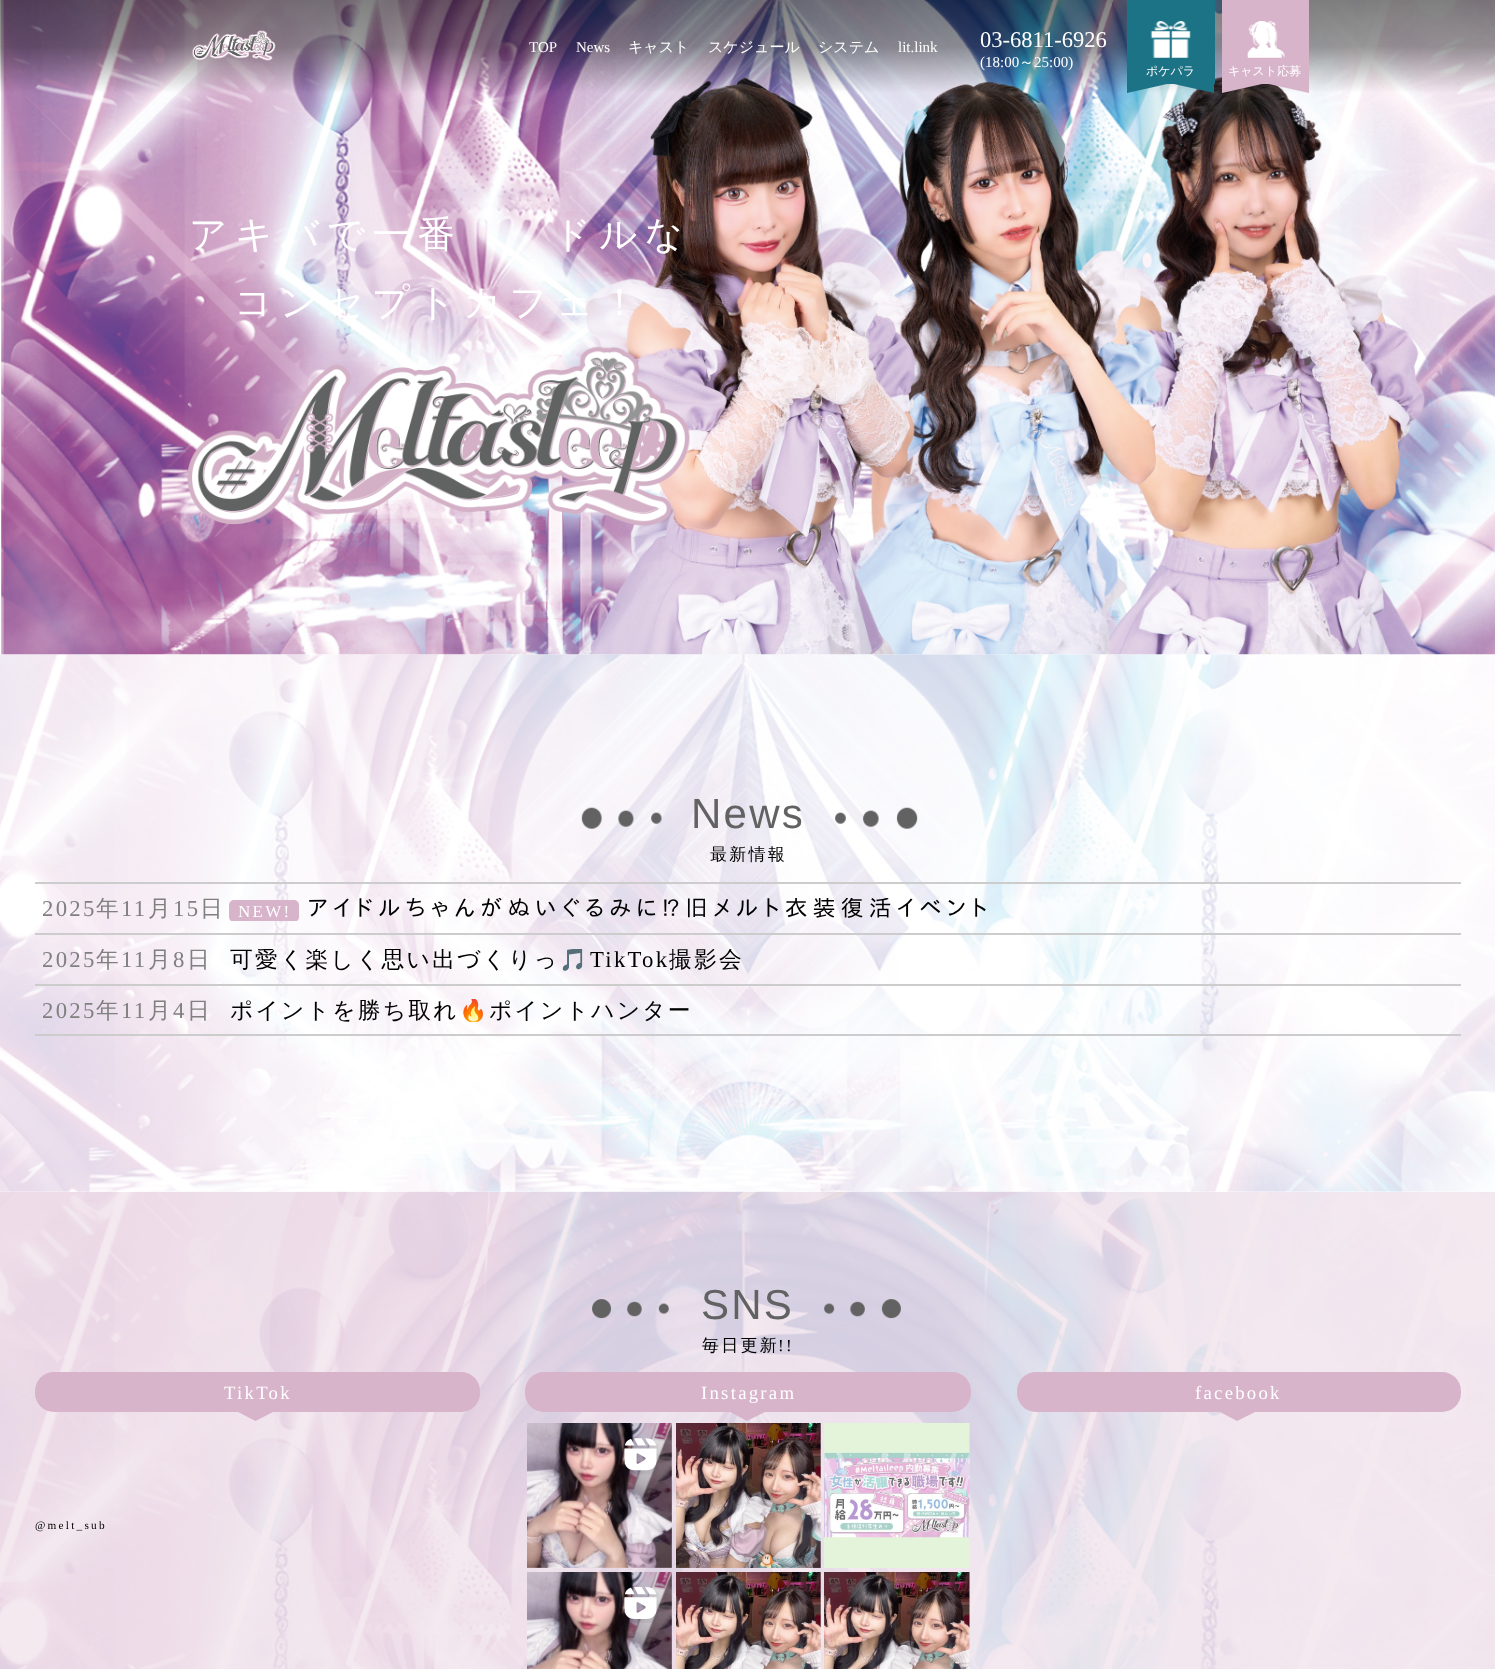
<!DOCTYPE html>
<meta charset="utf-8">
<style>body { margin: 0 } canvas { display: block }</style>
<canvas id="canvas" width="1495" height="1669"></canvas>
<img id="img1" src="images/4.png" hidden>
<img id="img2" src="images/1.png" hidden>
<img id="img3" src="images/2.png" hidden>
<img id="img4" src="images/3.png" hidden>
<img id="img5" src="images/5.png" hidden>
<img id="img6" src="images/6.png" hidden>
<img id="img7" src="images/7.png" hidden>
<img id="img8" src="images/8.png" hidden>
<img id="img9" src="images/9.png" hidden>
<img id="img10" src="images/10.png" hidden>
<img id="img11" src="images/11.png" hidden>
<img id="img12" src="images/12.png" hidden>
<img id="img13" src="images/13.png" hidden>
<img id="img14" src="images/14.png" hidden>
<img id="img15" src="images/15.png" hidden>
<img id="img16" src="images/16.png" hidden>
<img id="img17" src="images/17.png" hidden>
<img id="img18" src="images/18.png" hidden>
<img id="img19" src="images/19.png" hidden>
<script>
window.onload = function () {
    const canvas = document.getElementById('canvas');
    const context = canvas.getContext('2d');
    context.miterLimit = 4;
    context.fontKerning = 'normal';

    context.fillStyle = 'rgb(255, 255, 255)';
    context.fillRect(0, 0, 1495, 1669);
    context.drawImage(document.getElementById('img1'), 0, 0, 1495, 655);
    context.drawImage(document.getElementById('img2'), 192, 30, 84, 31);
    context.fillStyle = 'rgb(28, 115, 134)';
    context.beginPath();
    context.moveTo(1214, 75);
    context.lineTo(1214, 93);
    context.lineTo(1174, 84);
    context.closePath();
    context.fill();
    context.beginPath();
    context.moveTo(1127, 93);
    context.lineTo(1127, 75);
    context.lineTo(1167, 84);
    context.closePath();
    context.fill();
    context.fillRect(1127, 0, 88, 84);
    context.drawImage(document.getElementById('img3'), 1150, 21, 41, 37);
    context.fillStyle = 'rgb(216, 180, 203)';
    context.beginPath();
    context.moveTo(1309, 75);
    context.lineTo(1309, 93);
    context.lineTo(1269, 84);
    context.closePath();
    context.fill();
    context.beginPath();
    context.moveTo(1222, 93);
    context.lineTo(1222, 75);
    context.lineTo(1262, 84);
    context.closePath();
    context.fill();
    context.fillRect(1222, 0, 87, 84);
    context.drawImage(document.getElementById('img4'), 1247, 21, 38, 37);
    context.drawImage(document.getElementById('img5'), 187, 346, 503, 180);
    context.drawImage(document.getElementById('img6'), 0, 654, 1495, 538);
    context.drawImage(document.getElementById('img7'), 581, 807, 81, 22);
    context.drawImage(document.getElementById('img8'), 835, 807, 83, 22);
    context.fillStyle = 'rgb(204, 204, 204)';
    context.fillRect(35, 882, 1426, 2);
    context.save();
    context.beginPath();
    context.rect(226, 898, 1235, 23);
    context.clip();
    context.fillStyle = 'rgb(216, 180, 203)';
    context.beginPath();
    context.roundRect(229, 900, 70, 22, 5);
    context.fill();
    context.restore();
    context.fillRect(35, 933, 1426, 2);
    context.fillRect(35, 984, 1426, 2);
    context.fillRect(35, 1034, 1426, 2);
    context.drawImage(document.getElementById('img9'), 0, 1191, 1495, 478);
    context.drawImage(document.getElementById('img10'), 592, 1299, 77, 20);
    context.drawImage(document.getElementById('img11'), 824, 1299, 77, 20);
    context.fillStyle = 'rgb(216, 180, 203)';
    context.beginPath();
    context.roundRect(35, 1372, 445, 40, 19);
    context.fill();
    context.beginPath();
    context.moveTo(238, 1412);
    context.lineTo(273, 1412);
    context.lineTo(255.5, 1421);
    context.closePath();
    context.fill();
    context.beginPath();
    context.roundRect(525, 1372, 446, 40, 19);
    context.fill();
    context.beginPath();
    context.moveTo(730, 1412);
    context.lineTo(765, 1412);
    context.lineTo(747, 1421);
    context.closePath();
    context.fill();
    context.drawImage(document.getElementById('img12'), 527, 1423, 145, 145);
    context.drawImage(document.getElementById('img13'), 624, 1438, 35, 37);
    context.drawImage(document.getElementById('img14'), 676, 1423, 145, 145);
    context.drawImage(document.getElementById('img15'), 824, 1423, 146, 145);
    context.drawImage(document.getElementById('img16'), 527, 1572, 145, 97);
    context.drawImage(document.getElementById('img17'), 624, 1587, 35, 36);
    context.drawImage(document.getElementById('img18'), 676, 1572, 145, 97);
    context.drawImage(document.getElementById('img19'), 824, 1572, 146, 97);
    context.beginPath();
    context.roundRect(1017, 1372, 444, 40, 19);
    context.fill();
    context.beginPath();
    context.moveTo(1220, 1412);
    context.lineTo(1255, 1412);
    context.lineTo(1237, 1421);
    context.closePath();
    context.fill();
    context.font = '15px Liberation Serif';
    context.fillStyle = 'rgb(255, 255, 255)';
    context.fillText('TOP', 529, 52);
    context.fillText('News', 576, 52);
    context.font = '500 15px WenQuanYi Zen Hei';
    context.fillText('キャスト', 628, 52);
    context.fillText('スケジュール', 708, 52);
    context.fillText('システム', 818, 52);
    context.font = '15px Liberation Serif';
    context.fillText('lit.link', 898, 52);
    context.font = '22.5px Liberation Serif';
    context.fillText('03-6811-6926', 980, 47);
    context.font = '15px Liberation Serif';
    context.fillText('(18:00', 980, 67);
    context.font = '500 15px WenQuanYi Zen Hei';
    context.fillText('～', 1019, 67);
    context.font = '15px Liberation Serif';
    context.fillText('25:00)', 1034, 67);
    context.font = '500 12px WenQuanYi Zen Hei';
    context.fillText('ポケパラ', 1146, 75);
    context.fillText('キャスト応募', 1228, 75);
    context.letterSpacing = '7.5px';
    context.font = '500 37.5px WenQuanYi Zen Hei';
    context.fillText('アキバで一番', 189, 247);
    context.fillText('ドルな', 553, 247);
    context.fillText('コンセプトカフェ！', 234, 315);
    context.letterSpacing = '2.25px';
    context.font = '42px Liberation Sans';
    context.fillStyle = 'rgb(98, 98, 98)';
    context.fillText('News', 691, 828);
    context.font = '500 17px WenQuanYi Zen Hei';
    context.fillStyle = 'rgb(0, 0, 0)';
    context.fillText('最新情報', 710, 860);
    context.font = '22.75px Liberation Serif';
    context.fillStyle = 'rgb(128, 128, 128)';
    context.fillText('2025', 42, 916);
    context.font = '500 22.75px WenQuanYi Zen Hei';
    context.fillText('年', 96, 916);
    context.font = '22.75px Liberation Serif';
    context.fillText('11', 121, 916);
    context.font = '500 22.75px WenQuanYi Zen Hei';
    context.fillText('月', 148, 916);
    context.font = '22.75px Liberation Serif';
    context.fillText('15', 173, 916);
    context.font = '500 22.75px WenQuanYi Zen Hei';
    context.fillText('日', 200, 916);
    context.font = '17px Liberation Serif';
    context.fillStyle = 'rgb(255, 255, 255)';
    context.fillText('NEW!', 238, 917);
    context.save();
    context.beginPath();
    context.rect(226, 898, 1235, 23);
    context.clip();
    context.letterSpacing = '5.25px';
    context.font = '22.75px IPAPGothic';
    context.fillStyle = 'rgb(0, 0, 0)';
    context.fillText('アイドルちゃんがぬいぐるみに⁉旧メルト衣装復活イベント', 308, 916);
    context.restore();
    context.font = '22.75px Liberation Serif';
    context.fillStyle = 'rgb(128, 128, 128)';
    context.fillText('2025', 42, 967);
    context.font = '500 22.75px WenQuanYi Zen Hei';
    context.fillText('年', 96, 967);
    context.font = '22.75px Liberation Serif';
    context.fillText('11', 121, 967);
    context.font = '500 22.75px WenQuanYi Zen Hei';
    context.fillText('月', 148, 967);
    context.font = '22.75px Liberation Serif';
    context.fillText('8', 173, 967);
    context.font = '500 22.75px WenQuanYi Zen Hei';
    context.fillText('日', 187, 967);
    context.save();
    context.beginPath();
    context.rect(226, 949, 1235, 22);
    context.clip();
    context.fillStyle = 'rgb(0, 0, 0)';
    context.fillText('可愛く楽しく思い出づくりっ', 230, 967);
    context.font = '22.75px Noto Color Emoji';
    context.fillText('🎵', 559, 967);
    context.restore();
    context.font = '22.75px Liberation Serif';
    context.fillStyle = 'rgb(0, 0, 0)';
    context.fillText('TikTok', 590, 967);
    context.save();
    context.beginPath();
    context.rect(226, 949, 1235, 22);
    context.clip();
    context.font = '500 22.75px WenQuanYi Zen Hei';
    context.fillText('撮影会', 669, 967);
    context.restore();
    context.fillStyle = 'rgb(128, 128, 128)';
    context.fillText('2025', 42, 1018);
    context.font = '500 22.75px WenQuanYi Zen Hei';
    context.fillText('年', 96, 1018);
    context.font = '22.75px Liberation Serif';
    context.fillText('11', 121, 1018);
    context.font = '500 22.75px WenQuanYi Zen Hei';
    context.fillText('月', 148, 1018);
    context.font = '22.75px Liberation Serif';
    context.fillText('4', 173, 1018);
    context.font = '500 22.75px WenQuanYi Zen Hei';
    context.fillText('日', 187, 1018);
    context.fillStyle = 'rgb(0, 0, 0)';
    context.fillText('ポイントを勝ち取れ', 230, 1018);
    context.save();
    context.beginPath();
    context.rect(226, 999, 1235, 23);
    context.clip();
    context.font = '22.75px Noto Color Emoji';
    context.fillText('🔥', 459, 1018);
    context.restore();
    context.fillText('ポイントハンター', 489, 1018);
    context.font = '42px Liberation Sans';
    context.fillStyle = 'rgb(98, 98, 98)';
    context.fillText('SNS', 701, 1319);
    context.font = '500 17px WenQuanYi Zen Hei';
    context.fillStyle = 'rgb(0, 0, 0)';
    context.fillText('毎日更新', 702, 1351);
    context.font = '17px Liberation Serif';
    context.fillText('!!', 778, 1351);
    context.font = '18.75px Liberation Serif';
    context.fillStyle = 'rgb(255, 255, 255)';
    context.fillText('TikTok', 224, 1399);
    context.font = '11.25px Liberation Serif';
    context.fillStyle = 'rgb(0, 0, 0)';
    context.fillText('@melt_sub', 35, 1529);
    context.font = '18.75px Liberation Serif';
    context.fillStyle = 'rgb(255, 255, 255)';
    context.fillText('Instagram', 701, 1399);
    context.fillText('facebook', 1195, 1399);
};
</script>
